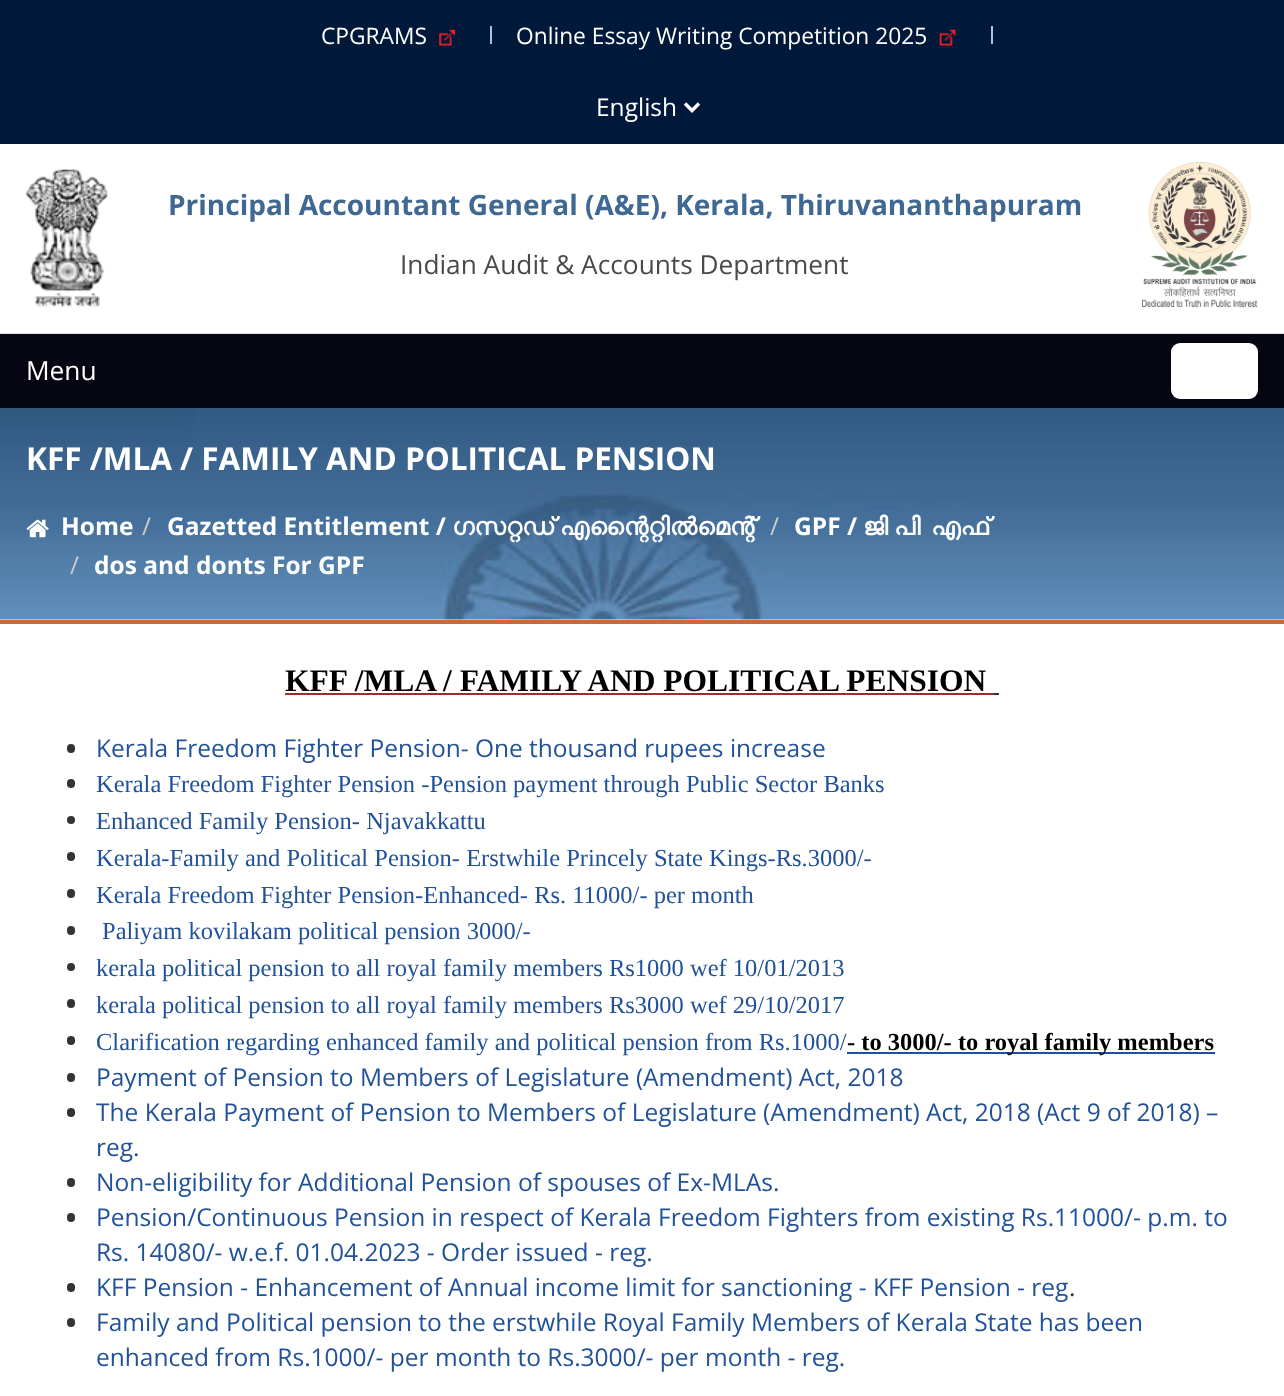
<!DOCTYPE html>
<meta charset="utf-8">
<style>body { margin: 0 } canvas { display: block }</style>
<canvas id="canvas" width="1284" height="1396"></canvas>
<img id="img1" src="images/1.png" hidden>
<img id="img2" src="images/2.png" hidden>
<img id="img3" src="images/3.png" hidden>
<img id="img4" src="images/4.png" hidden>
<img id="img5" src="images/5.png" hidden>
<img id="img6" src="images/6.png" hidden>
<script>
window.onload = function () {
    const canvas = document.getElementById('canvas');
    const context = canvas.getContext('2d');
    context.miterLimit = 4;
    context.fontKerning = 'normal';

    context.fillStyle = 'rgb(255, 255, 255)';
    context.fillRect(0, 0, 1284, 1396);
    context.fillStyle = 'rgb(0, 24, 58)';
    context.fillRect(0, 0, 1284, 144);
    context.drawImage(document.getElementById('img1'), 439, 29, 16, 17);
    context.fillStyle = 'rgb(175, 192, 215)';
    context.fillRect(490, 26, 2, 18);
    context.drawImage(document.getElementById('img2'), 939, 29, 17, 17);
    context.fillRect(991, 26, 2, 18);
    context.beginPath();
    context.moveTo(685, 103.5);
    context.lineTo(692, 110.5);
    context.lineTo(699, 103.5);
    context.strokeStyle = 'rgb(255, 255, 255)';
    context.lineWidth = 3.5;
    context.stroke();
    context.fillStyle = 'rgb(221, 221, 221)';
    context.fillRect(0, 333, 1284, 1);
    context.drawImage(document.getElementById('img3'), 26, 169, 82, 138);
    context.drawImage(document.getElementById('img4'), 1142, 162, 116, 146);
    context.fillStyle = 'rgb(6, 6, 19)';
    context.fillRect(0, 334, 1284, 74);
    context.fillStyle = 'rgb(255, 255, 255)';
    context.beginPath();
    context.roundRect(1171, 343, 87, 56, 9);
    context.fill();
    context.drawImage(document.getElementById('img5'), 0, 408, 1284, 212);
    context.fillStyle = 'rgb(212, 101, 46)';
    context.fillRect(0, 620, 1284, 4);
    context.drawImage(document.getElementById('img6'), 26, 519, 23, 19);
    context.fillStyle = 'rgb(165, 42, 42)';
    context.fillRect(285, 693, 709, 2);
    context.fillStyle = 'rgb(51, 51, 51)';
    context.fillRect(994, 693, 5, 2);
    context.beginPath();
    context.roundRect(67, 744, 8, 9, 4);
    context.fill();
    context.beginPath();
    context.roundRect(67, 779, 8, 9, 4);
    context.fill();
    context.beginPath();
    context.arc(71, 820, 4, 0, 2 * Math.PI);
    context.fill();
    context.beginPath();
    context.roundRect(67, 852, 8, 9, 4);
    context.fill();
    context.beginPath();
    context.roundRect(67, 889, 8, 9, 4);
    context.fill();
    context.beginPath();
    context.roundRect(67, 926, 8, 9, 4);
    context.fill();
    context.beginPath();
    context.arc(71, 967, 4, 0, 2 * Math.PI);
    context.fill();
    context.beginPath();
    context.roundRect(67, 999, 8, 9, 4);
    context.fill();
    context.beginPath();
    context.roundRect(67, 1036, 8, 9, 4);
    context.fill();
    context.fillStyle = 'rgb(33, 82, 153)';
    context.fillRect(847, 1052, 368, 2);
    context.fillStyle = 'rgb(51, 51, 51)';
    context.beginPath();
    context.roundRect(67, 1073, 8, 9, 4);
    context.fill();
    context.beginPath();
    context.roundRect(67, 1108, 8, 9, 4);
    context.fill();
    context.beginPath();
    context.roundRect(67, 1178, 8, 9, 4);
    context.fill();
    context.beginPath();
    context.roundRect(67, 1213, 8, 9, 4);
    context.fill();
    context.beginPath();
    context.roundRect(67, 1283, 8, 9, 4);
    context.fill();
    context.beginPath();
    context.roundRect(67, 1318, 8, 9, 4);
    context.fill();
    context.font = '22.75px Open Sans';
    context.fillStyle = 'rgb(255, 255, 255)';
    context.fillText('CPGRAMS', 321, 44);
    context.fillText('Online Essay Writing Competition 2025', 516, 44);
    context.font = '24.5px Open Sans';
    context.fillText('English', 596, 116);
    context.font = 'bold 28px Open Sans';
    context.fillStyle = 'rgb(63, 105, 147)';
    context.fillText('Principal Accountant General (A&E), Kerala, Thiruvananthapuram', 168, 215);
    context.font = '26.25px Open Sans';
    context.fillStyle = 'rgb(73, 73, 73)';
    context.fillText('Indian Audit & Accounts Department', 400, 274);
    context.fillStyle = 'rgb(255, 255, 255)';
    context.fillText('Menu', 26, 380);
    context.font = 'bold 31.5px Open Sans';
    context.fillText('KFF /MLA / FAMILY AND POLITICAL PENSION', 26, 470);
    context.font = 'bold 24.5px Open Sans';
    context.fillText('Home', 61, 535);
    context.font = '24.5px Open Sans';
    context.fillStyle = 'rgb(204, 204, 204)';
    context.fillText('/', 142, 535);
    context.font = 'bold 24.5px Open Sans';
    context.fillStyle = 'rgb(255, 255, 255)';
    context.fillText('Gazetted Entitlement /', 167, 535);
    context.font = 'bold 24.5px FreeSans';
    context.fillText('ഗസറ്റഡ് എന്റൈറ്റിൽമെന്റ്', 452, 535);
    context.font = '24.5px Open Sans';
    context.fillStyle = 'rgb(204, 204, 204)';
    context.fillText('/', 770, 535);
    context.font = 'bold 24.5px Open Sans';
    context.fillStyle = 'rgb(255, 255, 255)';
    context.fillText('GPF /', 794, 535);
    context.font = 'bold 24.5px FreeSans';
    context.fillText('ജി പി', 863, 535);
    context.fillText('എഫ്', 931, 535);
    context.font = '24.5px Open Sans';
    context.fillStyle = 'rgb(204, 204, 204)';
    context.fillText('/', 70, 574);
    context.font = 'bold 24.5px Open Sans';
    context.fillStyle = 'rgb(255, 255, 255)';
    context.fillText('dos and donts For GPF', 94, 574);
    context.font = 'bold 31.5px Liberation Serif';
    context.fillStyle = 'rgb(0, 0, 0)';
    context.fillText('KFF /MLA / FAMILY AND POLITICAL PENSION', 285, 691);
    context.font = '24.5px Open Sans';
    context.fillStyle = 'rgb(33, 82, 153)';
    context.fillText('Kerala Freedom Fighter Pension- One thousand rupees increase', 96, 757);
    context.font = '24.5px Liberation Serif';
    context.fillText('Kerala Freedom Fighter Pension -Pension payment through Public Sector Banks', 96, 792);
    context.fillText('Enhanced Family Pension- Njavakkattu', 96, 829);
    context.fillText('Kerala-Family and Political Pension- Erstwhile Princely State Kings-Rs.3000/-', 96, 866);
    context.fillText('Kerala Freedom Fighter Pension-Enhanced- Rs. 11000/- per month', 96, 903);
    context.fillText('Paliyam kovilakam political pension 3000/-', 102, 939);
    context.fillText('kerala political pension to all royal family members Rs1000 wef 10/01/2013', 96, 976);
    context.fillText('kerala political pension to all royal family members Rs3000 wef 29/10/2017', 96, 1013);
    context.fillText('Clarification regarding enhanced family and political pension from Rs.1000/', 96, 1050);
    context.font = 'bold 24.5px Liberation Serif';
    context.fillStyle = 'rgb(0, 0, 0)';
    context.fillText('- to 3000/- to royal family members', 847, 1050);
    context.font = '24.5px Open Sans';
    context.fillStyle = 'rgb(33, 82, 153)';
    context.fillText('Payment of Pension to Members of Legislature (Amendment) Act, 2018', 96, 1086);
    context.fillText('The Kerala Payment of Pension to Members of Legislature (Amendment) Act, 2018 (Act 9 of 2018) –', 96, 1121);
    context.fillText('reg.', 96, 1156);
    context.fillText('Non-eligibility for Additional Pension of spouses of Ex-MLAs.', 96, 1191);
    context.fillText('Pension/Continuous Pension in respect of Kerala Freedom Fighters from existing Rs.11000/- p.m. to', 96, 1226);
    context.fillText('Rs. 14080/- w.e.f. 01.04.2023 - Order issued - reg.', 96, 1261);
    context.fillText('KFF Pension - Enhancement of Annual income limit for sanctioning - KFF Pension - reg', 96, 1296);
    context.fillStyle = 'rgb(51, 51, 51)';
    context.fillText('.', 1069, 1296);
    context.fillStyle = 'rgb(33, 82, 153)';
    context.fillText('Family and Political pension to the erstwhile Royal Family Members of Kerala State has been', 96, 1331);
    context.fillText('enhanced from Rs.1000/- per month to Rs.3000/- per month - reg.', 96, 1366);
};
</script>
